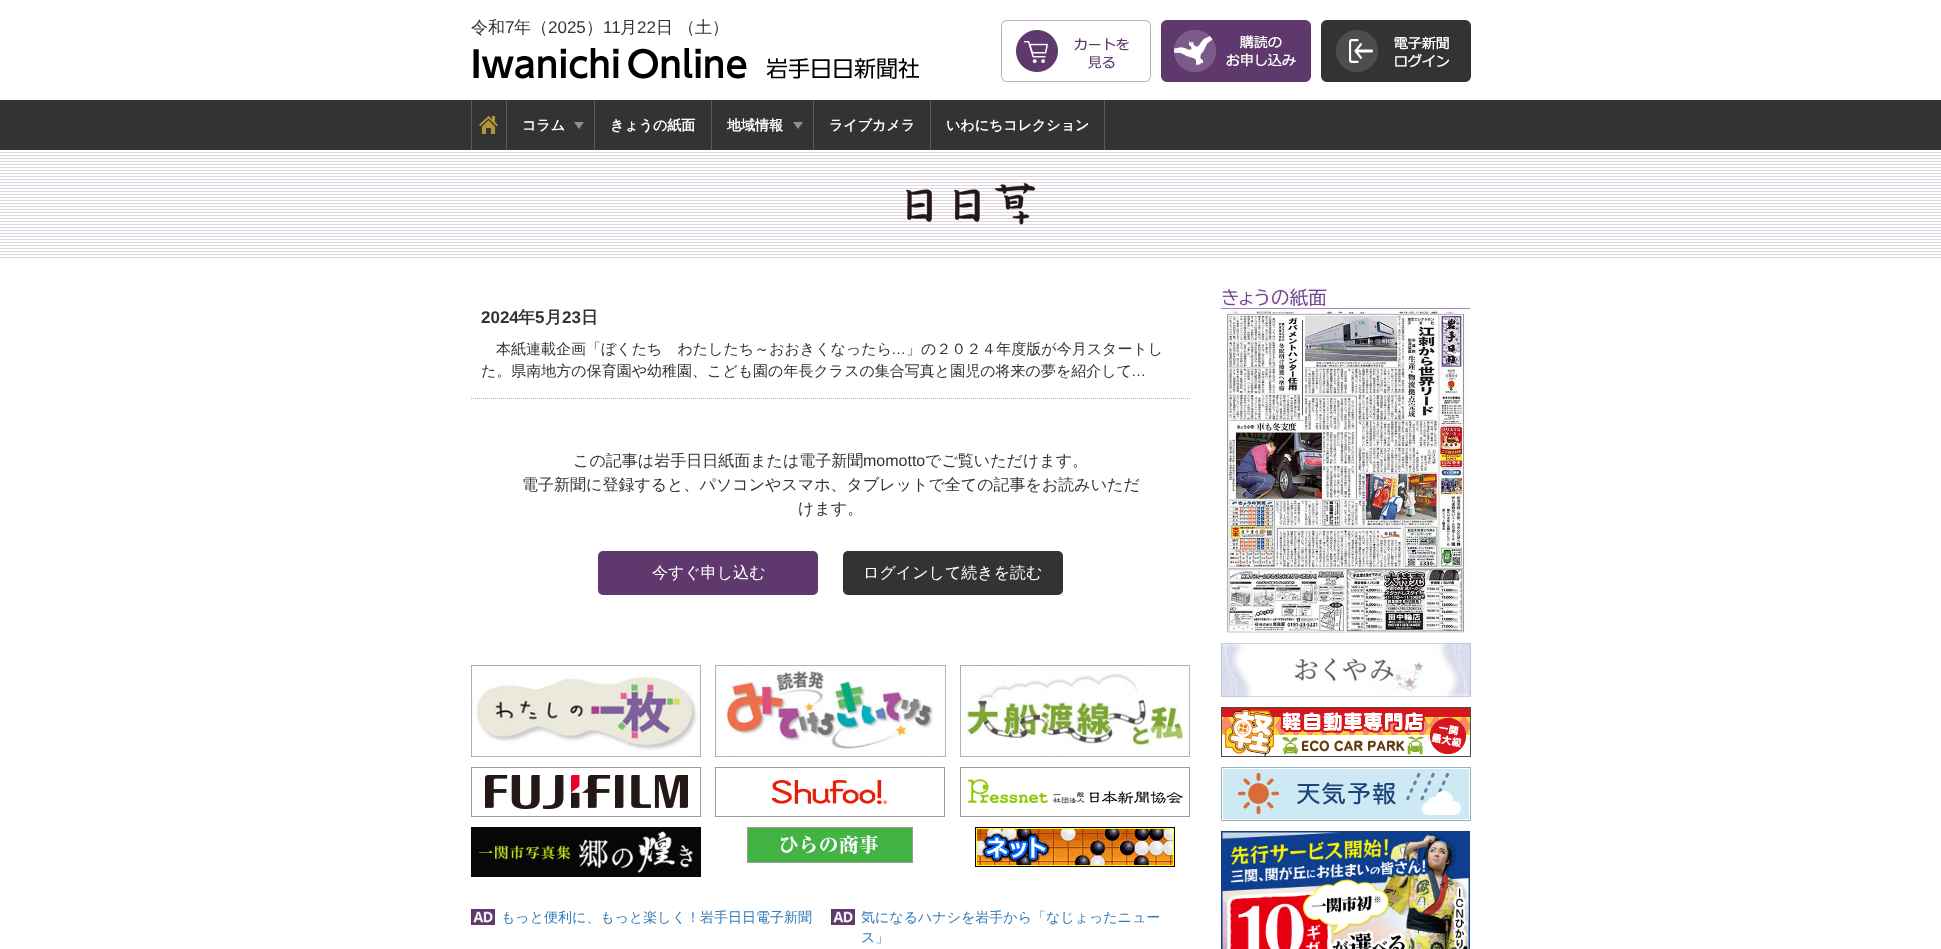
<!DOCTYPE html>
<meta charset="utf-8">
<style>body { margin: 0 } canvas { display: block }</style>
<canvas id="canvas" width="1941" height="949"></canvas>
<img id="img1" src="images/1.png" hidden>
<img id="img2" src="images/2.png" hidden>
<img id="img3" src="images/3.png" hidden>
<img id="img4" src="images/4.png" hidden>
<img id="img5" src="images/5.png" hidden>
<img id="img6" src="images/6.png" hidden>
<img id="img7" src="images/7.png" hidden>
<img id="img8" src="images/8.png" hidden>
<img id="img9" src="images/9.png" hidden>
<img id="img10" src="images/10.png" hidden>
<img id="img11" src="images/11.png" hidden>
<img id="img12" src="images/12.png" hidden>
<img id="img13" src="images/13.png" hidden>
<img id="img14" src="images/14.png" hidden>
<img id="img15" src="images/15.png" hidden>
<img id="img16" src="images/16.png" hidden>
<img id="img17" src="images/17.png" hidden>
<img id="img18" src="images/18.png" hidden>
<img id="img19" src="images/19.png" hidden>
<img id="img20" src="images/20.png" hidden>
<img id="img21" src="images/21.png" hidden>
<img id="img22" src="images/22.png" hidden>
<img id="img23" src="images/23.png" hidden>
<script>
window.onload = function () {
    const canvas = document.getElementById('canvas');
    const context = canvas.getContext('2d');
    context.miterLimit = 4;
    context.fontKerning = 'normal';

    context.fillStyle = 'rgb(255, 255, 255)';
    context.fillRect(0, 0, 1941, 949);
    context.drawImage(document.getElementById('img1'), 473, 48, 446, 31);
    context.drawImage(document.getElementById('img2'), 1001, 20, 150, 62);
    context.drawImage(document.getElementById('img3'), 1161, 20, 150, 62);
    context.drawImage(document.getElementById('img4'), 1321, 20, 150, 62);
    context.fillStyle = 'rgb(51, 51, 51)';
    context.fillRect(0, 100, 1941, 50);
    context.fillStyle = 'rgb(92, 92, 92)';
    context.fillRect(506, 100, 1, 50);
    context.fillRect(471, 100, 1, 50);
    context.drawImage(document.getElementById('img5'), 479, 116, 19, 18);
    context.fillRect(594, 100, 1, 50);
    context.drawImage(document.getElementById('img6'), 574, 122, 10, 7);
    context.fillRect(711, 100, 1, 50);
    context.fillRect(813, 100, 1, 50);
    context.drawImage(document.getElementById('img6'), 793, 122, 10, 7);
    context.fillRect(930, 100, 1, 50);
    context.fillRect(1104, 100, 1, 50);
    context.drawImage(document.getElementById('img7'), 0, 152, 1941, 106);
    context.drawImage(document.getElementById('img8'), 906, 183, 129, 42);
    context.beginPath();
    context.moveTo(471, 398.5);
    context.lineTo(1191, 398.5);
    context.strokeStyle = 'rgb(178, 178, 178)';
    context.setLineDash([1, 1]);
    context.stroke();
    context.fillStyle = 'rgb(95, 57, 110)';
    context.beginPath();
    context.roundRect(598, 551, 220, 44, 5);
    context.fill();
    context.fillStyle = 'rgb(51, 51, 51)';
    context.beginPath();
    context.roundRect(843, 551, 220, 44, 5);
    context.fill();
    context.drawImage(document.getElementById('img9'), 471, 665, 230, 92);
    context.drawImage(document.getElementById('img10'), 715, 665, 231, 92);
    context.drawImage(document.getElementById('img11'), 960, 665, 230, 92);
    context.drawImage(document.getElementById('img12'), 471, 767, 230, 50);
    context.drawImage(document.getElementById('img13'), 715, 767, 230, 50);
    context.drawImage(document.getElementById('img14'), 960, 767, 230, 50);
    context.drawImage(document.getElementById('img15'), 471, 827, 230, 50);
    context.drawImage(document.getElementById('img16'), 747, 827, 166, 36);
    context.drawImage(document.getElementById('img17'), 975, 827, 200, 40);
    context.drawImage(document.getElementById('img18'), 471, 909, 24, 16);
    context.drawImage(document.getElementById('img18'), 831, 909, 24, 16);
    context.drawImage(document.getElementById('img19'), 1221, 288, 249, 345);
    context.drawImage(document.getElementById('img20'), 1221, 643, 250, 54);
    context.drawImage(document.getElementById('img21'), 1221, 707, 250, 50);
    context.drawImage(document.getElementById('img22'), 1221, 767, 250, 54);
    context.drawImage(document.getElementById('img23'), 1221, 831, 249, 118);
    context.font = '500 17px WenQuanYi Zen Hei';
    context.fillText('令和', 471, 33);
    context.font = '17px Liberation Sans';
    context.fillText('7', 505, 33);
    context.font = '500 17px WenQuanYi Zen Hei';
    context.fillText('年（', 514, 33);
    context.font = '17px Liberation Sans';
    context.fillText('2025', 548, 33);
    context.font = '500 17px WenQuanYi Zen Hei';
    context.fillText('）', 586, 33);
    context.font = '17px Liberation Sans';
    context.fillText('11', 603, 33);
    context.font = '500 17px WenQuanYi Zen Hei';
    context.fillText('月', 620, 33);
    context.font = '17px Liberation Sans';
    context.fillText('22', 637, 33);
    context.font = '500 17px WenQuanYi Zen Hei';
    context.fillText('日', 656, 33);
    context.fillText('（土）', 678, 33);
    context.font = 'bold 14px WenQuanYi Zen Hei';
    context.fillStyle = 'rgb(255, 255, 255)';
    context.fillText('コラム', 522, 130);
    context.fillText('きょうの紙面', 610, 130);
    context.fillText('地域情報', 727, 130);
    context.fillText('ライブカメラ', 829, 130);
    context.fillText('いわにちコレクション', 946, 130);
    context.font = 'bold 17px Liberation Sans';
    context.fillStyle = 'rgb(51, 51, 51)';
    context.fillText('2024', 481, 323);
    context.font = 'bold 17px WenQuanYi Zen Hei';
    context.fillText('年', 518, 323);
    context.font = 'bold 17px Liberation Sans';
    context.fillText('5', 535, 323);
    context.font = 'bold 17px WenQuanYi Zen Hei';
    context.fillText('月', 545, 323);
    context.font = 'bold 17px Liberation Sans';
    context.fillText('23', 562, 323);
    context.font = 'bold 17px WenQuanYi Zen Hei';
    context.fillText('日', 581, 323);
    context.font = '500 15px WenQuanYi Zen Hei';
    context.fillText('本紙連載企画「ぼくたち　わたしたち～おおきくなったら', 496, 354);
    context.font = '15px Liberation Sans';
    context.fillText('…', 891, 354);
    context.font = '500 15px WenQuanYi Zen Hei';
    context.fillText('」の２０２４年度版が今月スタートし', 906, 354);
    context.fillText('た。県南地方の保育園や幼稚園、こども園の年長クラスの集合写真と園児の将来の夢を紹介して', 481, 376);
    context.font = '15px Liberation Sans';
    context.fillText('…', 1131, 376);
    context.font = '500 16px WenQuanYi Zen Hei';
    context.fillText('この記事は岩手日日紙面または電子新聞', 573, 466);
    context.font = '16px Liberation Sans';
    context.fillText('momotto', 863, 466);
    context.font = '500 16px WenQuanYi Zen Hei';
    context.fillText('でご覧いただけます。', 925, 466);
    context.fillText('電子新聞に登録すると、パソコンやスマホ、タブレットで全ての記事をお読みいただ', 522, 490);
    context.fillText('けます。', 798, 514);
    context.fillStyle = 'rgb(255, 255, 255)';
    context.fillText('今すぐ申し込む', 652, 578);
    context.fillText('ログインして続きを読む', 863, 578);
    context.font = '500 14px WenQuanYi Zen Hei';
    context.fillStyle = 'rgb(51, 122, 183)';
    context.fillText('もっと便利に、もっと楽しく！岩手日日電子新聞', 501, 922);
    context.fillText('気になるハナシを岩手から「なじょったニュー', 861, 922);
    context.fillText('ス」', 861, 942);
};
</script>
